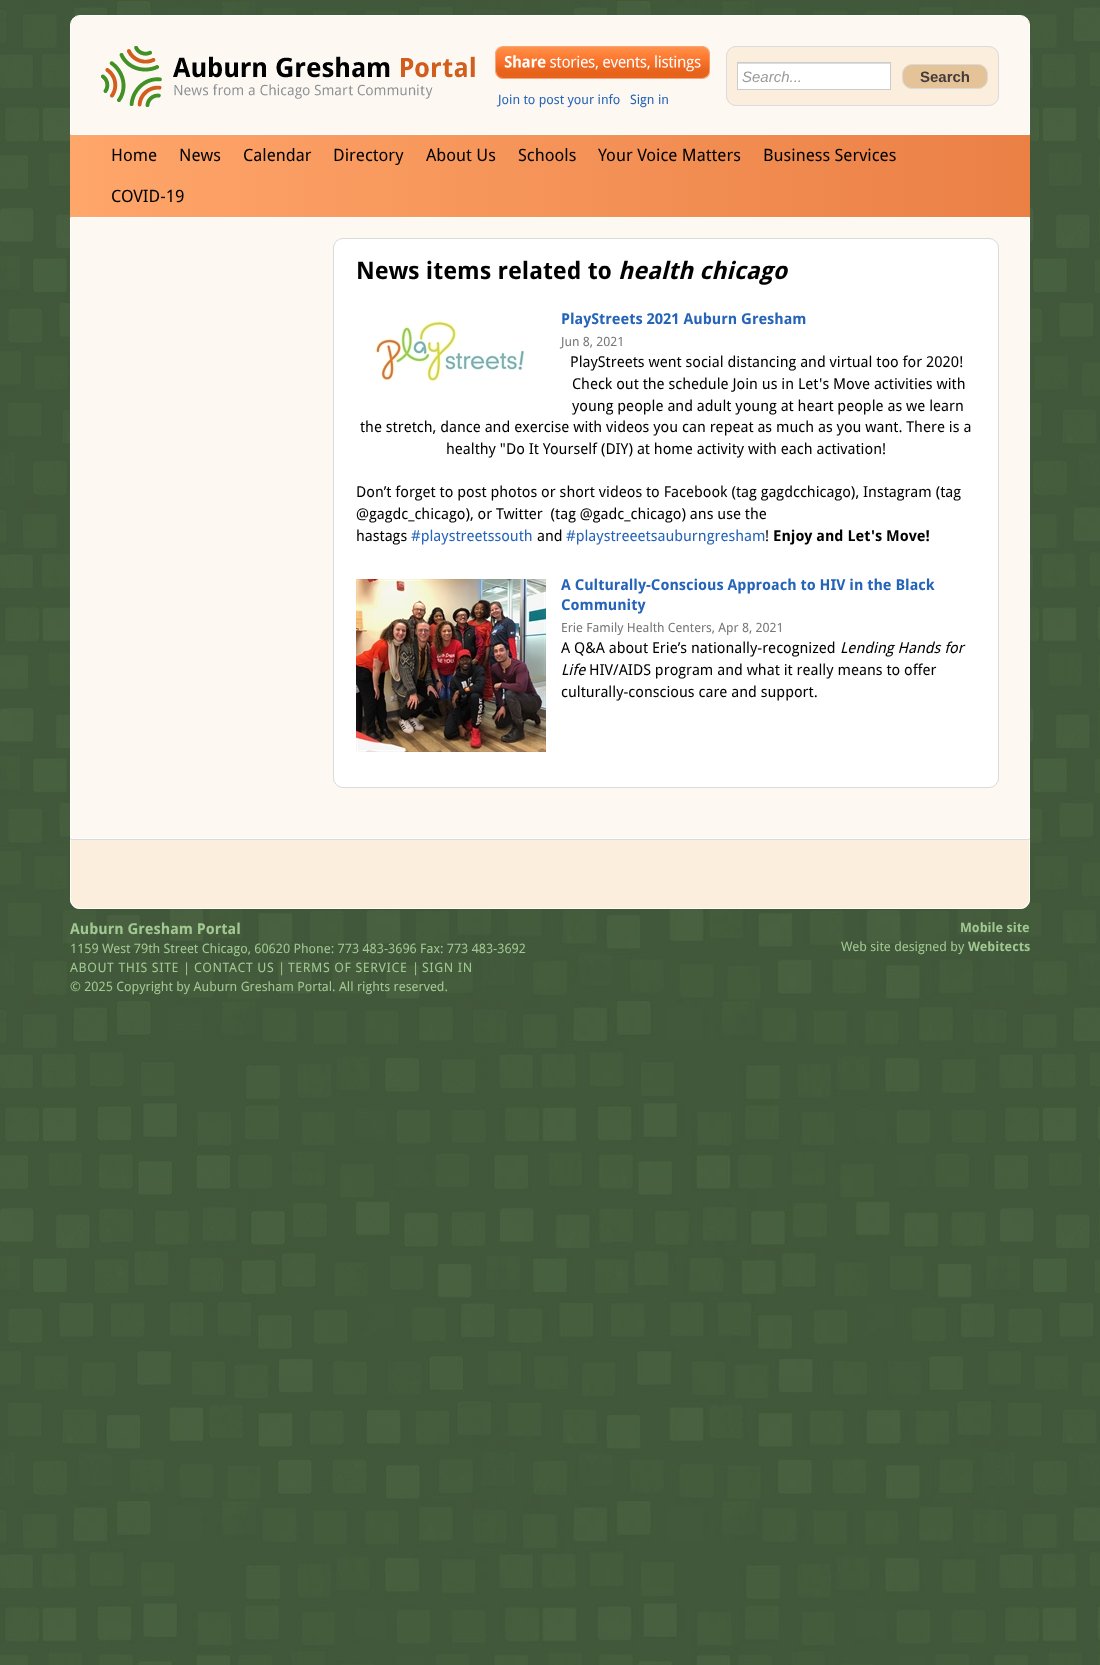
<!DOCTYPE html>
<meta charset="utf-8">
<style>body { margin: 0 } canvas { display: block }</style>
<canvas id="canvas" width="1100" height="1665"></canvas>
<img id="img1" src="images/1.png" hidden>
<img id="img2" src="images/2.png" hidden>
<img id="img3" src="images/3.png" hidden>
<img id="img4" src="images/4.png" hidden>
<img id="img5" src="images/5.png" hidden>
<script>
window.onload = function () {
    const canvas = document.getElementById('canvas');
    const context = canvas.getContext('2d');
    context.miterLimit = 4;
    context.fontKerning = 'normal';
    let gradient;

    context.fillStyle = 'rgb(255, 255, 255)';
    context.fillRect(0, 0, 1100, 1665);
    context.drawImage(document.getElementById('img1'), 0, 0, 1100, 1665);
    context.fillStyle = 'rgb(253, 248, 241)';
    context.beginPath();
    context.roundRect(70.5, 15.5, 959, 119, [9.5, 9.5, 0, 0]);
    context.fill();
    context.strokeStyle = 'rgb(255, 255, 255)';
    context.stroke();
    context.drawImage(document.getElementById('img2'), 101, 46, 374, 61);
    context.drawImage(document.getElementById('img3'), 495, 46, 215, 33);
    context.fillStyle = 'rgb(251, 238, 220)';
    context.beginPath();
    context.roundRect(726.5, 46.5, 272, 59, 9.5);
    context.fill();
    context.strokeStyle = 'rgb(218, 218, 218)';
    context.stroke();
    context.fillStyle = 'rgb(255, 255, 255)';
    context.fillRect(738, 64, 152, 25);
    context.fillStyle = 'rgb(221, 221, 221)';
    context.fillRect(738, 63, 152, 1);
    context.strokeStyle = 'rgb(204, 204, 204)';
    context.strokeRect(737.5, 62.5, 153, 27);
    context.fillStyle = 'rgb(229, 195, 153)';
    context.beginPath();
    context.roundRect(902.5, 64.5, 85, 24, 9.5);
    context.fill();
    context.strokeStyle = 'rgb(218, 218, 218)';
    context.stroke();
    gradient = context.createLinearGradient(70, 135, 1030, 135);
    gradient.addColorStop(0, 'rgb(255, 166, 107)');
    gradient.addColorStop(1, 'rgb(235, 128, 69)');
    context.fillStyle = gradient;
    context.fillRect(70, 135, 960, 82);
    context.fillStyle = 'rgb(253, 248, 241)';
    context.beginPath();
    context.rect(70.5, 217.5, 959, 621);
    context.fill();
    context.strokeStyle = 'rgb(255, 255, 255)';
    context.stroke();
    context.fillStyle = 'rgb(255, 255, 255)';
    context.beginPath();
    context.roundRect(333.5, 238.5, 665, 549, 9.5);
    context.fill();
    context.strokeStyle = 'rgb(218, 218, 218)';
    context.stroke();
    context.drawImage(document.getElementById('img4'), 375, 320, 150, 62);
    context.drawImage(document.getElementById('img5'), 356, 579, 190, 173);
    context.fillStyle = 'rgb(251, 238, 220)';
    context.beginPath();
    context.roundRect(70, 839, 960, 70, [0, 0, 10, 10]);
    context.fill();
    context.fillStyle = 'rgb(218, 218, 218)';
    context.beginPath();
    context.moveTo(70, 839);
    context.lineTo(71, 840);
    context.lineTo(1029, 840);
    context.lineTo(1030, 839);
    context.closePath();
    context.fill();
    context.fillStyle = 'rgb(255, 255, 255)';
    context.beginPath();
    context.moveTo(1030, 839);
    context.lineTo(1029, 840);
    context.lineTo(1029, 899);
    context.bezierCurveTo(1029, 902, 1028, 904, 1026, 905);
    context.lineTo(1027, 906);
    context.bezierCurveTo(1029, 904, 1030, 902, 1030, 899);
    context.closePath();
    context.fill();
    context.beginPath();
    context.moveTo(80, 909);
    context.lineTo(1020, 909);
    context.bezierCurveTo(1023, 909, 1026, 908, 1027, 906);
    context.lineTo(1026, 905);
    context.bezierCurveTo(1025, 907, 1022, 908, 1020, 908);
    context.lineTo(80, 908);
    context.bezierCurveTo(78, 908, 75, 907, 74, 905);
    context.lineTo(73, 906);
    context.bezierCurveTo(74, 908, 77, 909, 80, 909);
    context.closePath();
    context.fill();
    context.beginPath();
    context.moveTo(71, 840);
    context.lineTo(70, 839);
    context.lineTo(70, 899);
    context.bezierCurveTo(70, 902, 71, 904, 73, 906);
    context.lineTo(74, 905);
    context.bezierCurveTo(72, 904, 71, 902, 71, 899);
    context.closePath();
    context.fill();
    context.font = 'italic 15px Liberation Sans';
    context.fillStyle = 'rgb(153, 153, 153)';
    context.fillText('Search...', 742, 82);
    context.font = 'bold 15px Liberation Sans';
    context.fillStyle = 'rgb(67, 59, 59)';
    context.fillText('Search', 920, 82);
    context.font = '13px Droid Sans';
    context.fillStyle = 'rgb(37, 100, 184)';
    context.fillText('Join to post your info', 498, 104);
    context.fillText('Sign in', 630, 104);
    context.font = '17px Droid Sans';
    context.fillStyle = 'rgb(0, 0, 0)';
    context.fillText('Home', 111, 161);
    context.fillText('News', 179, 161);
    context.fillText('Calendar', 243, 161);
    context.fillText('Directory', 333, 161);
    context.fillText('About Us', 426, 161);
    context.fillText('Schools', 518, 161);
    context.fillText('Your Voice Matters', 598, 161);
    context.fillText('Business Services', 763, 161);
    context.fillText('COVID-19', 111, 202);
    context.font = 'bold 24px Droid Sans';
    context.fillText('News items related to', 356, 279);
    context.font = 'italic bold 24px Droid Sans';
    context.fillText('health chicago', 618, 279);
    context.font = 'bold 15px Droid Sans';
    context.fillStyle = 'rgb(37, 100, 184)';
    context.fillText('PlayStreets 2021 Auburn Gresham', 561, 324);
    context.font = '12.75px Droid Sans';
    context.fillStyle = 'rgb(119, 119, 119)';
    context.fillText('Jun 8, 2021', 561, 346);
    context.font = '15px Droid Sans';
    context.fillStyle = 'rgb(0, 0, 0)';
    context.fillText('PlayStreets went social distancing and virtual too for 2020!', 570, 367);
    context.fillText('Check out the schedule Join us in Let\'s Move activities with', 572, 389);
    context.fillText('young people and adult young at heart people as we learn', 572, 411);
    context.fillText('the stretch, dance and exercise with videos you can repeat as much as you want. There is a', 360, 432);
    context.fillText('healthy "Do It Yourself (DIY) at home activity with each activation!', 446, 454);
    context.fillText('Don’t forget to post photos or short videos to Facebook (tag gagdcchicago), Instagram (tag', 356, 497);
    context.fillText('@gagdc_chicago), or Twitter  (tag @gadc_chicago) ans use the', 356, 519);
    context.fillText('hastags', 356, 541);
    context.fillStyle = 'rgb(37, 100, 184)';
    context.fillText('#playstreetssouth', 411, 541);
    context.fillStyle = 'rgb(0, 0, 0)';
    context.fillText('and', 537, 541);
    context.fillStyle = 'rgb(37, 100, 184)';
    context.fillText('#playstreeetsauburngresham', 566, 541);
    context.fillStyle = 'rgb(0, 0, 0)';
    context.fillText('!', 765, 541);
    context.font = 'bold 15px Droid Sans';
    context.fillText('Enjoy and Let\'s Move!', 773, 541);
    context.fillStyle = 'rgb(37, 100, 184)';
    context.fillText('A Culturally-Conscious Approach to HIV in the Black', 561, 590);
    context.fillText('Community', 561, 610);
    context.font = '12.75px Droid Sans';
    context.fillStyle = 'rgb(119, 119, 119)';
    context.fillText('Erie Family Health Centers, Apr 8, 2021', 561, 632);
    context.font = '15px Droid Sans';
    context.fillStyle = 'rgb(0, 0, 0)';
    context.fillText('A Q&A about Erie’s nationally-recognized', 561, 653);
    context.font = 'italic 15px Droid Sans';
    context.fillText('Lending Hands for', 840, 653);
    context.fillText('Life', 561, 675);
    context.font = '15px Droid Sans';
    context.fillText('HIV/AIDS program and what it really means to offer', 589, 675);
    context.fillText('culturally-conscious care and support.', 561, 697);
    context.font = 'bold 15px Droid Sans';
    context.fillStyle = 'rgb(161, 200, 146)';
    context.fillText('Auburn Gresham Portal', 70, 934);
    context.font = '13px Droid Sans';
    context.fillText('1159 West 79th Street Chicago, 60620 Phone: 773 483-3696 Fax: 773 483-3692', 70, 953);
    context.font = 'bold 13px Droid Sans';
    context.fillText('Mobile site', 960, 932);
    context.font = '13px Droid Sans';
    context.fillText('Web site designed by', 841, 951);
    context.font = 'bold 13px Droid Sans';
    context.fillText('Webitects', 968, 951);
    context.letterSpacing = '0.6px';
    context.font = '13px Droid Sans';
    context.fillText('ABOUT THIS SITE', 70, 972);
    context.letterSpacing = '0px';
    context.fillText('|', 183, 972);
    context.letterSpacing = '0.6px';
    context.fillText('CONTACT US', 194, 972);
    context.letterSpacing = '0px';
    context.fillText('|', 278, 972);
    context.letterSpacing = '0.6px';
    context.fillText('TERMS OF SERVICE', 288, 972);
    context.letterSpacing = '0px';
    context.fillText('|', 412, 972);
    context.letterSpacing = '0.6px';
    context.fillText('SIGN IN', 422, 972);
    context.letterSpacing = '0px';
    context.fillText('© 2025 Copyright by Auburn Gresham Portal. All rights reserved.', 70, 991);
};
</script>
